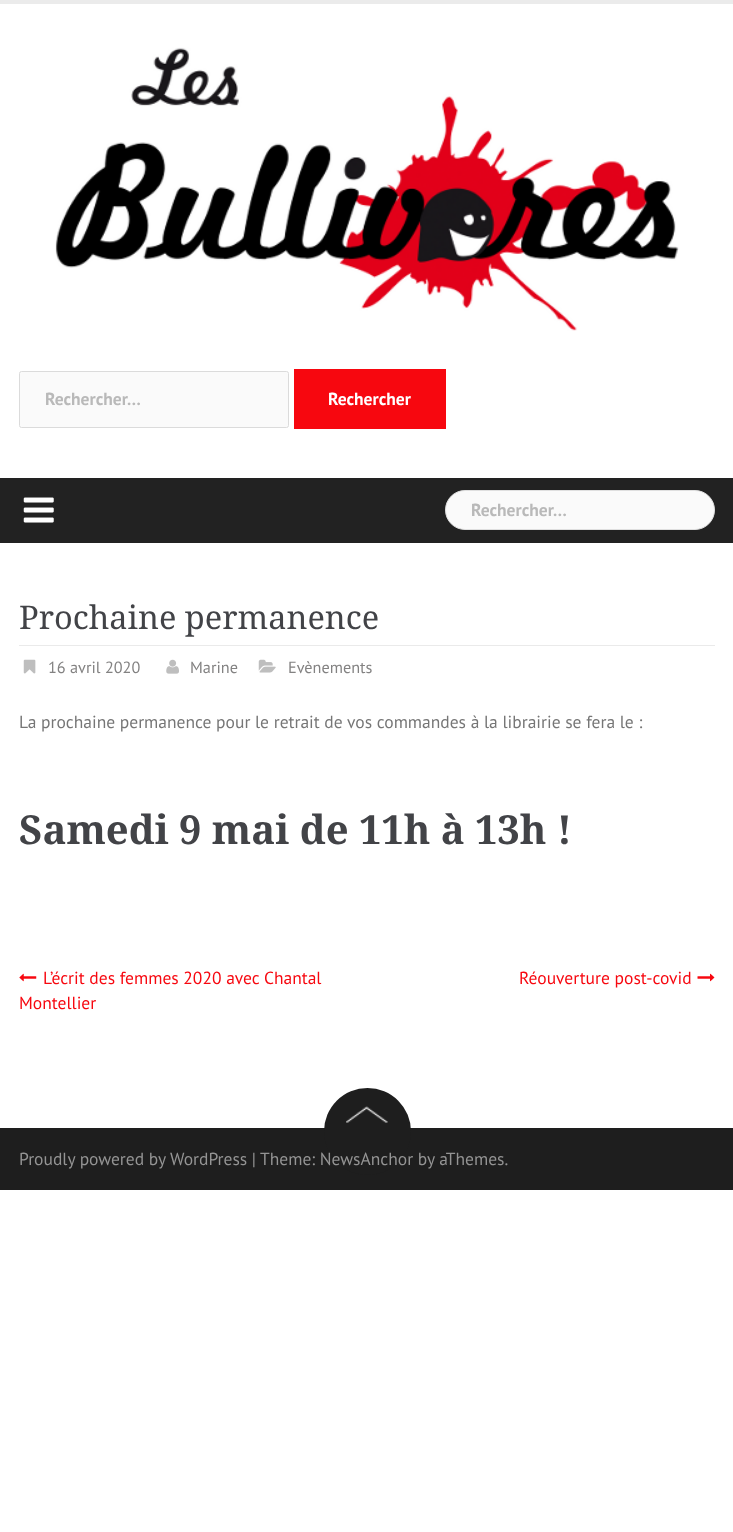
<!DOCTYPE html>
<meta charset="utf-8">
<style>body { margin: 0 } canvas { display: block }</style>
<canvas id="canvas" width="733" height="1532"></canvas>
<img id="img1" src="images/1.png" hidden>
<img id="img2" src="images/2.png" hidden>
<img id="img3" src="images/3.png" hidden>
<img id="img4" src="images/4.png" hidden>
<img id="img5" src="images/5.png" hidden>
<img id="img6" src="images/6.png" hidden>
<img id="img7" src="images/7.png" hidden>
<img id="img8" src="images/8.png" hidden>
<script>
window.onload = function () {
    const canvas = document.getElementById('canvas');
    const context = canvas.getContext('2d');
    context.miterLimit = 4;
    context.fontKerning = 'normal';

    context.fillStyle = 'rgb(255, 255, 255)';
    context.fillRect(0, 0, 733, 1532);
    context.fillStyle = 'rgb(235, 235, 235)';
    context.fillRect(0, 0, 733, 4);
    context.drawImage(document.getElementById('img1'), 55, 47, 624, 284);
    context.fillStyle = 'rgb(250, 250, 250)';
    context.beginPath();
    context.roundRect(19.5, 371.5, 269, 56, 2);
    context.fill();
    context.strokeStyle = 'rgb(219, 219, 219)';
    context.stroke();
    context.fillStyle = 'rgb(247, 7, 15)';
    context.fillRect(294, 369, 152, 60);
    context.fillStyle = 'rgb(34, 34, 34)';
    context.fillRect(0, 478, 733, 65);
    context.drawImage(document.getElementById('img2'), 23, 497, 31, 26);
    context.fillStyle = 'rgb(250, 250, 250)';
    context.beginPath();
    context.roundRect(445.5, 490.5, 269, 39, 19.5);
    context.fill();
    context.strokeStyle = 'rgb(223, 223, 223)';
    context.stroke();
    context.fillStyle = 'rgb(234, 234, 234)';
    context.fillRect(19, 645, 696, 1);
    context.drawImage(document.getElementById('img3'), 23, 659, 13, 15);
    context.drawImage(document.getElementById('img4'), 166, 659, 13, 15);
    context.drawImage(document.getElementById('img5'), 258, 659, 18, 14);
    context.drawImage(document.getElementById('img6'), 19, 973, 18, 9);
    context.drawImage(document.getElementById('img7'), 697, 973, 18, 9);
    context.fillStyle = 'rgb(30, 30, 30)';
    context.fillRect(0, 1128, 733, 62);
    context.beginPath();
    context.arc(367.5, 1131.5, 43.5, 0, 2 * Math.PI);
    context.fill();
    context.drawImage(document.getElementById('img8'), 346, 1106, 42, 17);
    context.font = 'bold 17.5px PT Sans';
    context.fillStyle = 'rgb(185, 185, 185)';
    context.fillText('Rechercher…', 45, 405);
    context.fillStyle = 'rgb(255, 255, 255)';
    context.fillText('Rechercher', 328, 405);
    context.fillStyle = 'rgb(185, 185, 185)';
    context.fillText('Rechercher…', 471, 516);
    context.font = '32.5px Droid Serif';
    context.fillStyle = 'rgb(66, 67, 71)';
    context.fillText('Prochaine permanence', 19, 629);
    context.font = '16.25px PT Sans';
    context.fillStyle = 'rgb(131, 130, 130)';
    context.fillText('16 avril 2020', 48, 673);
    context.fillText('Marine', 190, 673);
    context.fillText('Evènements', 288, 673);
    context.font = '17.5px PT Sans';
    context.fillStyle = 'rgb(118, 118, 118)';
    context.fillText('La prochaine permanence pour le retrait de vos commandes à la librairie se fera le :', 19, 728);
    context.font = 'bold 40px Droid Serif';
    context.fillStyle = 'rgb(66, 67, 71)';
    context.fillText('Samedi 9 mai de 11h à 13h !', 19, 844);
    context.font = '17.5px PT Sans';
    context.fillStyle = 'rgb(247, 7, 15)';
    context.fillText('L’écrit des femmes 2020 avec Chantal', 43, 984);
    context.fillText('Montellier', 19, 1009);
    context.fillText('Réouverture post-covid', 519, 984);
    context.fillStyle = 'rgb(148, 148, 148)';
    context.fillText('Proudly powered by WordPress |', 19, 1165);
    context.fillText('Theme: NewsAnchor by aThemes.', 260, 1165);
};
</script>
